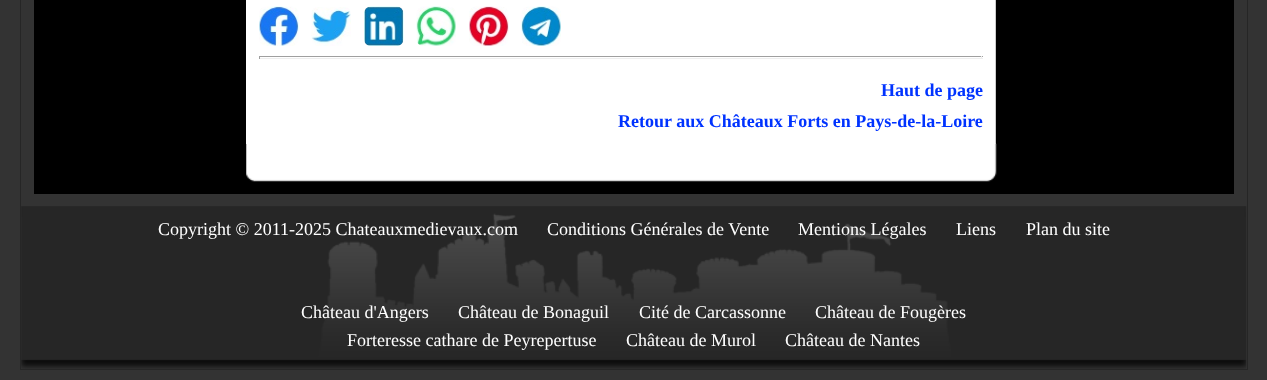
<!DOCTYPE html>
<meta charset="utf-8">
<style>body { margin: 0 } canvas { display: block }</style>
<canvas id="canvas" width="1267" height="380"></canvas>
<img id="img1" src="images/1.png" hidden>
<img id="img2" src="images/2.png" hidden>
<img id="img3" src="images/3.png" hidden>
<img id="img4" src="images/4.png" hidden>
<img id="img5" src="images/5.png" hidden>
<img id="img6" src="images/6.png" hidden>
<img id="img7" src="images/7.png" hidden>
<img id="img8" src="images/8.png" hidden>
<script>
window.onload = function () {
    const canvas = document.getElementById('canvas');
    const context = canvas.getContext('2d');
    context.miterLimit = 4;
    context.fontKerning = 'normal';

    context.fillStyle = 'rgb(51, 51, 51)';
    context.fillRect(0, 0, 1267, 380);
    context.strokeStyle = 'rgb(38, 38, 38)';
    context.strokeRect(20.5, -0.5, 1227, 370);
    context.fillStyle = 'rgb(0, 0, 0)';
    context.fillRect(34, 0, 1200, 194);
    context.fillStyle = 'rgb(255, 255, 255)';
    context.fillRect(246, 0, 749, 144);
    context.fillStyle = 'rgb(204, 204, 204)';
    context.fillRect(995, 0, 1, 144);
    context.drawImage(document.getElementById('img1'), 259, 6, 40, 40);
    context.drawImage(document.getElementById('img2'), 311, 7, 40, 39);
    context.drawImage(document.getElementById('img3'), 364, 6, 40, 40);
    context.drawImage(document.getElementById('img4'), 416, 6, 40, 40);
    context.drawImage(document.getElementById('img5'), 469, 6, 40, 40);
    context.drawImage(document.getElementById('img6'), 521, 6, 40, 40);
    context.fillStyle = 'rgb(159, 159, 159)';
    context.fillRect(259, 56, 724, 1);
    context.fillStyle = 'rgb(238, 238, 238)';
    context.fillRect(981, 56, 1, 3);
    context.fillRect(259, 58, 724, 1);
    context.fillStyle = 'rgb(159, 159, 159)';
    context.fillRect(259, 56, 1, 3);
    context.drawImage(document.getElementById('img7'), 246, 143, 751, 39);
    context.drawImage(document.getElementById('img8'), 21, 206, 1226, 163);
    context.font = 'bold 18px Liberation Serif';
    context.fillStyle = 'rgb(0, 51, 255)';
    context.fillText('Haut de page', 881, 96);
    context.fillText('Retour aux Châteaux Forts en Pays-de-la-Loire', 618, 127);
    context.font = '18px Liberation Serif';
    context.fillStyle = 'rgb(255, 255, 255)';
    context.fillText('Copyright © 2011-2025 Chateauxmedievaux.com', 158, 235);
    context.fillText('Conditions Générales de Vente', 547, 235);
    context.fillText('Mentions Légales', 798, 235);
    context.fillText('Liens', 956, 235);
    context.fillText('Plan du site', 1026, 235);
    context.fillText('Château d\'Angers', 301, 318);
    context.fillText('Château de Bonaguil', 458, 318);
    context.fillText('Cité de Carcassonne', 639, 318);
    context.fillText('Château de Fougères', 815, 318);
    context.fillText('Forteresse cathare de Peyrepertuse', 347, 346);
    context.fillText('Château de Murol', 626, 346);
    context.fillText('Château de Nantes', 785, 346);
};
</script>
